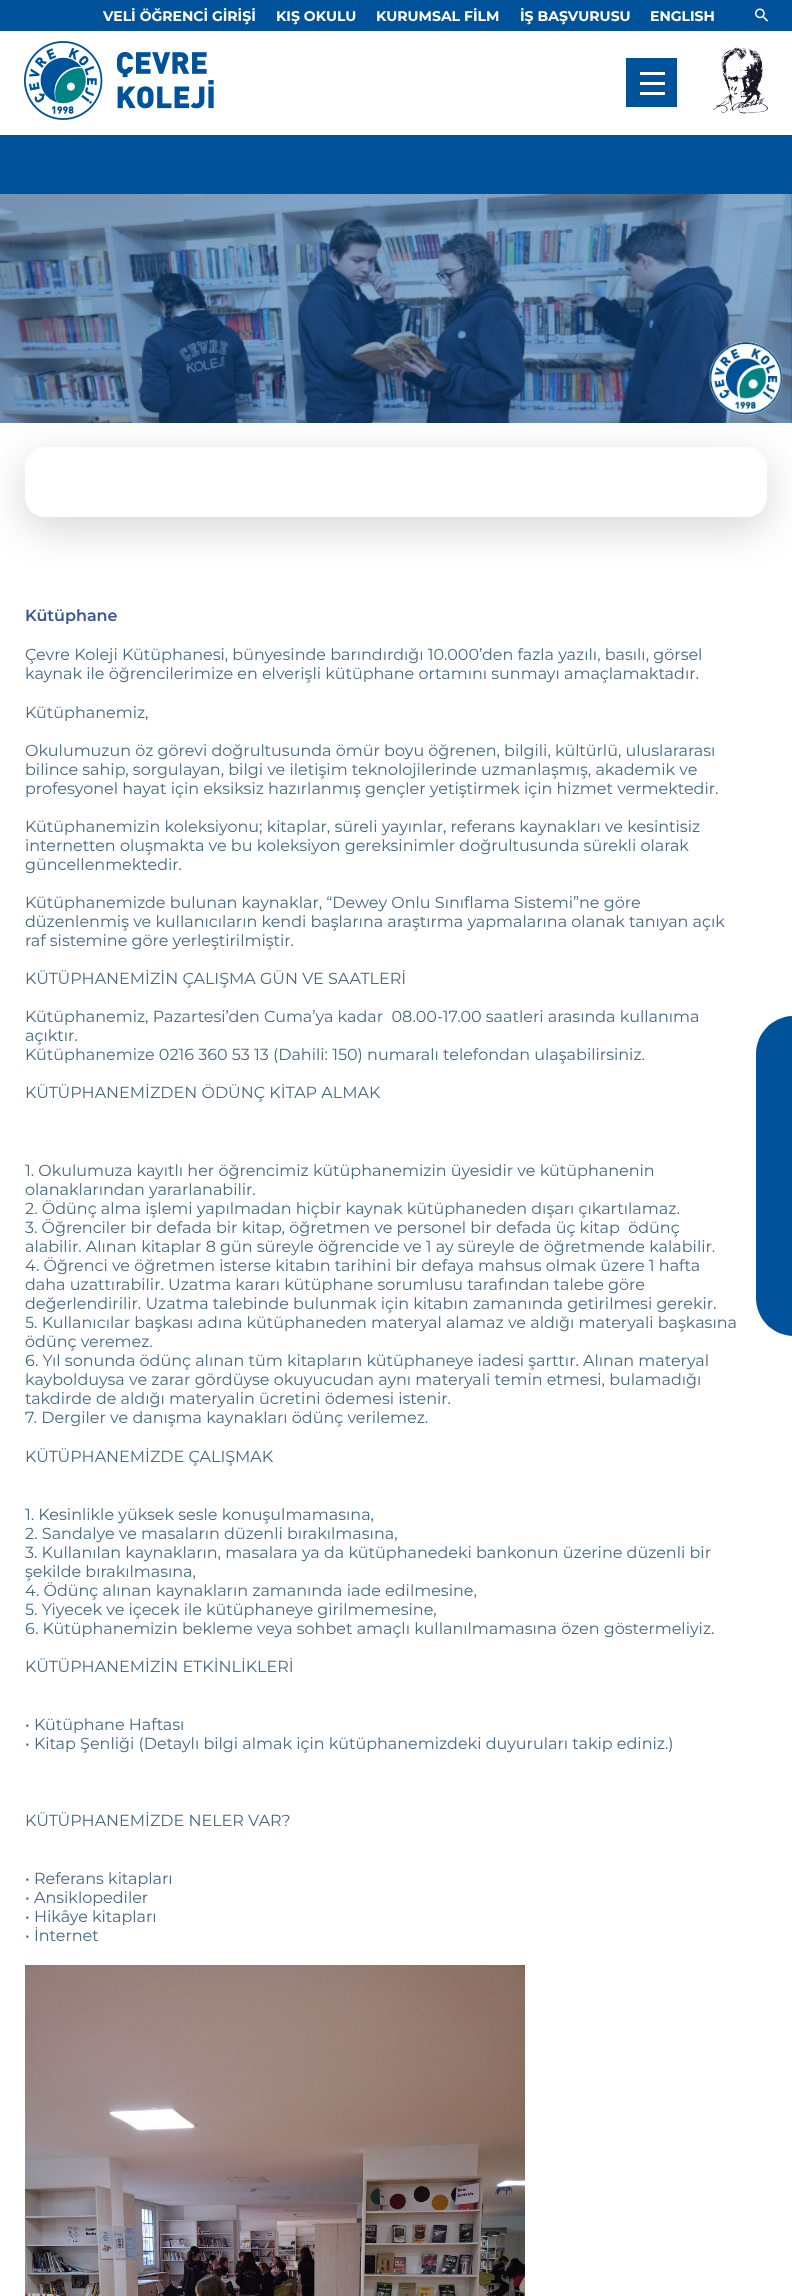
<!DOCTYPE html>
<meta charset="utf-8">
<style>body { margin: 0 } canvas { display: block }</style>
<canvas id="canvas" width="792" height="2296"></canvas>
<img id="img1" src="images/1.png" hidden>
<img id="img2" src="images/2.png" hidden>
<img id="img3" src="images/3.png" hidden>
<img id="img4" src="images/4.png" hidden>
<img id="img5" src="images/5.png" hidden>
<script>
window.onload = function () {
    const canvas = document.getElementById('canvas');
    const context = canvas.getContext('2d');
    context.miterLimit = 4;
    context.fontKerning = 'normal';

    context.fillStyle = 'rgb(255, 255, 255)';
    context.fillRect(0, 0, 792, 2296);
    context.fillStyle = 'rgb(0, 82, 154)';
    context.fillRect(0, 0, 792, 31);
    context.drawImage(document.getElementById('img1'), 755, 8, 13, 14);
    context.drawImage(document.getElementById('img2'), 24, 41, 190, 79);
    context.drawImage(document.getElementById('img3'), 713, 47, 55, 67);
    context.fillRect(626, 58, 51, 49);
    context.fillStyle = 'rgb(255, 255, 255)';
    context.fillRect(640, 82, 25, 3);
    context.fillRect(640, 72, 25, 3);
    context.fillRect(640, 92, 25, 3);
    context.fillStyle = 'rgb(0, 82, 154)';
    context.fillRect(0, 135, 792, 59);
    context.drawImage(document.getElementById('img4'), 0, 194, 792, 229);
    context.fillStyle = 'rgba(0, 0, 0, 0.16)';
    context.filter = 'blur(21px)';
    context.beginPath();
    context.roundRect(25, 459, 742, 70, 20);
    context.fill();
    context.filter = 'none';
    context.fillStyle = 'rgb(255, 255, 255)';
    context.beginPath();
    context.roundRect(25, 447, 742, 70, 20);
    context.fill();
    context.drawImage(document.getElementById('img5'), 25, 1965, 500, 331);
    context.fillStyle = 'rgb(0, 82, 154)';
    context.beginPath();
    context.moveTo(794, 1016);
    context.lineTo(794, 1336);
    context.bezierCurveTo(773, 1336, 756, 1319, 756, 1298);
    context.lineTo(756, 1054);
    context.bezierCurveTo(756, 1033, 773, 1016, 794, 1016);
    context.closePath();
    context.fill();
    context.font = 'bold 14px Montserrat';
    context.fillStyle = 'rgb(255, 255, 255)';
    context.fillText('VELİ ÖĞRENCİ GİRİŞİ', 103, 21);
    context.fillText('KIŞ OKULU', 276, 21);
    context.fillText('KURUMSAL FİLM', 376, 21);
    context.fillText('İŞ BAŞVURUSU', 520, 21);
    context.fillText('ENGLISH', 650, 21);
    context.font = '600 16px Montserrat';
    context.fillStyle = 'rgb(57, 85, 147)';
    context.fillText('Kütüphane', 25, 621);
    context.font = '16px Montserrat';
    context.fillStyle = 'rgb(71, 106, 133)';
    context.fillText('Çevre Koleji Kütüphanesi, bünyesinde barındırdığı 10.000’den fazla yazılı, basılı, görsel', 25, 660);
    context.fillText('kaynak ile öğrencilerimize en elverişli kütüphane ortamını sunmayı amaçlamaktadır.', 25, 679);
    context.fillText('Kütüphanemiz,', 25, 718);
    context.fillText('Okulumuzun öz görevi doğrultusunda ömür boyu öğrenen, bilgili, kültürlü, uluslararası', 25, 756);
    context.fillText('bilince sahip, sorgulayan, bilgi ve iletişim teknolojilerinde uzmanlaşmış, akademik ve', 25, 775);
    context.fillText('profesyonel hayat için eksiksiz hazırlanmış gençler yetiştirmek için hizmet vermektedir.', 25, 794);
    context.fillText('Kütüphanemizin koleksiyonu; kitaplar, süreli yayınlar, referans kaynakları ve kesintisiz', 25, 832);
    context.fillText('internetten oluşmakta ve bu koleksiyon gereksinimler doğrultusunda sürekli olarak', 25, 851);
    context.fillText('güncellenmektedir.', 25, 870);
    context.fillText('Kütüphanemizde bulunan kaynaklar, “Dewey Onlu Sınıflama Sistemi”ne göre', 25, 908);
    context.fillText('düzenlenmiş ve kullanıcıların kendi başlarına araştırma yapmalarına olanak tanıyan açık', 25, 927);
    context.fillText('raf sistemine göre yerleştirilmiştir.', 25, 946);
    context.fillText('KÜTÜPHANEMİZİN ÇALIŞMA GÜN VE SAATLERİ', 25, 984);
    context.fillText('Kütüphanemiz, Pazartesi’den Cuma’ya kadar  08.00-17.00 saatleri arasında kullanıma', 25, 1022);
    context.fillText('açıktır.', 25, 1041);
    context.fillText('Kütüphanemize 0216 360 53 13 (Dahili: 150) numaralı telefondan ulaşabilirsiniz.', 25, 1060);
    context.fillText('KÜTÜPHANEMİZDEN ÖDÜNÇ KİTAP ALMAK', 25, 1098);
    context.fillText('1. Okulumuza kayıtlı her öğrencimiz kütüphanemizin üyesidir ve kütüphanenin', 25, 1176);
    context.fillText('olanaklarından yararlanabilir.', 25, 1195);
    context.fillText('2. Ödünç alma işlemi yapılmadan hiçbir kaynak kütüphaneden dışarı çıkartılamaz.', 25, 1214);
    context.fillText('3. Öğrenciler bir defada bir kitap, öğretmen ve personel bir defada üç kitap  ödünç', 25, 1233);
    context.fillText('alabilir. Alınan kitaplar 8 gün süreyle öğrencide ve 1 ay süreyle de öğretmende kalabilir.', 25, 1252);
    context.fillText('4. Öğrenci ve öğretmen isterse kitabın tarihini bir defaya mahsus olmak üzere 1 hafta', 25, 1271);
    context.fillText('daha uzattırabilir. Uzatma kararı kütüphane sorumlusu tarafından talebe göre', 25, 1290);
    context.fillText('değerlendirilir. Uzatma talebinde bulunmak için kitabın zamanında getirilmesi gerekir.', 25, 1309);
    context.fillText('5. Kullanıcılar başkası adına kütüphaneden materyal alamaz ve aldığı materyali başkasına', 25, 1328);
    context.fillText('ödünç veremez.', 25, 1347);
    context.fillText('6. Yıl sonunda ödünç alınan tüm kitapların kütüphaneye iadesi şarttır. Alınan materyal', 25, 1366);
    context.fillText('kaybolduysa ve zarar gördüyse okuyucudan aynı materyali temin etmesi, bulamadığı', 25, 1385);
    context.fillText('takdirde de aldığı materyalin ücretini ödemesi istenir.', 25, 1404);
    context.fillText('7. Dergiler ve danışma kaynakları ödünç verilemez.', 25, 1423);
    context.fillText('KÜTÜPHANEMİZDE ÇALIŞMAK', 25, 1462);
    context.fillText('1. Kesinlikle yüksek sesle konuşulmamasına,', 25, 1520);
    context.fillText('2. Sandalye ve masaların düzenli bırakılmasına,', 25, 1539);
    context.fillText('3. Kullanılan kaynakların, masalara ya da kütüphanedeki bankonun üzerine düzenli bir', 25, 1558);
    context.fillText('şekilde bırakılmasına,', 25, 1577);
    context.fillText('4. Ödünç alınan kaynakların zamanında iade edilmesine,', 25, 1596);
    context.fillText('5. Yiyecek ve içecek ile kütüphaneye girilmemesine,', 25, 1615);
    context.fillText('6. Kütüphanemizin bekleme veya sohbet amaçlı kullanılmamasına özen göstermeliyiz.', 25, 1634);
    context.fillText('KÜTÜPHANEMİZİN ETKİNLİKLERİ', 25, 1672);
    context.fillText('• Kütüphane Haftası', 25, 1730);
    context.fillText('• Kitap Şenliği (Detaylı bilgi almak için kütüphanemizdeki duyuruları takip ediniz.)', 25, 1749);
    context.fillText('KÜTÜPHANEMİZDE NELER VAR?', 25, 1826);
    context.fillText('• Referans kitapları', 25, 1884);
    context.fillText('• Ansiklopediler', 25, 1903);
    context.fillText('• Hikâye kitapları', 25, 1922);
    context.fillText('• İnternet', 25, 1941);
};
</script>
